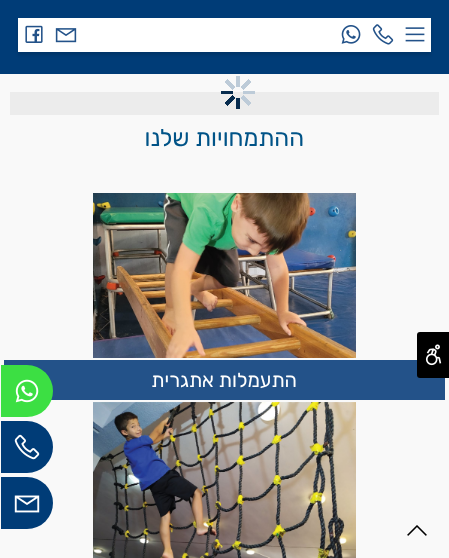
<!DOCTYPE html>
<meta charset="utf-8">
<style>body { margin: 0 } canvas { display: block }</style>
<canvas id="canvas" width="449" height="558"></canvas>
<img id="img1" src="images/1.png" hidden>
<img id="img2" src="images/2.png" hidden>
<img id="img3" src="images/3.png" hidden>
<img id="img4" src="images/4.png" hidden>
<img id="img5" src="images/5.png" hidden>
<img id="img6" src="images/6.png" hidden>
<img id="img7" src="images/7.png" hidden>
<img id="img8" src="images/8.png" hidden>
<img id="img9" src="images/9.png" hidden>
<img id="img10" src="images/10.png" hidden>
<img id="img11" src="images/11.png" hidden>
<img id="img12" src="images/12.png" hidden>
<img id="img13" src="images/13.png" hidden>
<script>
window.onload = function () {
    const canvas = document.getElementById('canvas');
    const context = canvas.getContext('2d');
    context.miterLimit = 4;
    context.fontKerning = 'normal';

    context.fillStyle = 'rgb(0, 60, 119)';
    context.fillRect(0, 0, 449, 558);
    context.fillStyle = 'rgba(0, 0, 0, 0.12)';
    context.filter = 'blur(1.5px)';
    context.beginPath();
    context.rect(18, 21, 413, 34);
    context.fill();
    context.filter = 'none';
    context.fillStyle = 'rgb(255, 255, 255)';
    context.fillRect(18, 18, 413, 34);
    context.drawImage(document.getElementById('img1'), 405, 27, 20, 15);
    context.drawImage(document.getElementById('img2'), 372, 24, 22, 21);
    context.drawImage(document.getElementById('img3'), 341, 25, 20, 19);
    context.drawImage(document.getElementById('img4'), 55, 28, 22, 15);
    context.drawImage(document.getElementById('img5'), 25, 25, 18, 18);
    context.fillStyle = 'rgb(249, 249, 249)';
    context.fillRect(0, 74, 449, 484);
    context.fillStyle = 'rgb(236, 236, 236)';
    context.fillRect(10, 92, 429, 23);
    context.drawImage(document.getElementById('img6'), 221, 76, 34, 33);
    context.fillStyle = 'rgb(35, 82, 137)';
    context.fillRect(4, 360, 441, 40);
    context.fillStyle = 'rgb(0, 0, 0)';
    context.beginPath();
    context.roundRect(417, 332, 32, 46, [3, 0, 0, 3]);
    context.fill();
    context.drawImage(document.getElementById('img7'), 425, 344, 17, 22);
    context.drawImage(document.getElementById('img8'), 93, 193, 263, 165);
    context.drawImage(document.getElementById('img9'), 93, 402, 263, 156);
    context.fillStyle = 'rgb(60, 223, 67)';
    context.beginPath();
    context.roundRect(1, 365, 52, 52, [0, 26, 26, 0]);
    context.fill();
    context.drawImage(document.getElementById('img10'), 15, 379, 24, 24);
    context.fillStyle = 'rgb(0, 60, 119)';
    context.beginPath();
    context.roundRect(1, 421, 52, 52, [0, 26, 26, 0]);
    context.fill();
    context.drawImage(document.getElementById('img11'), 14, 434, 26, 26);
    context.beginPath();
    context.roundRect(1, 477, 52, 52, [0, 26, 26, 0]);
    context.fill();
    context.drawImage(document.getElementById('img12'), 14, 495, 26, 18);
    context.drawImage(document.getElementById('img13'), 407, 525, 20, 11);
    context.direction = 'rtl';
    context.font = '24px Rubik';
    context.fillStyle = 'rgb(0, 83, 135)';
    context.fillText('ההתמחויות שלנו', 304, 146);
    context.font = '20px Rubik';
    context.fillStyle = 'rgb(255, 255, 255)';
    context.fillText('התעמלות אתגרית', 297, 387);
};
</script>
